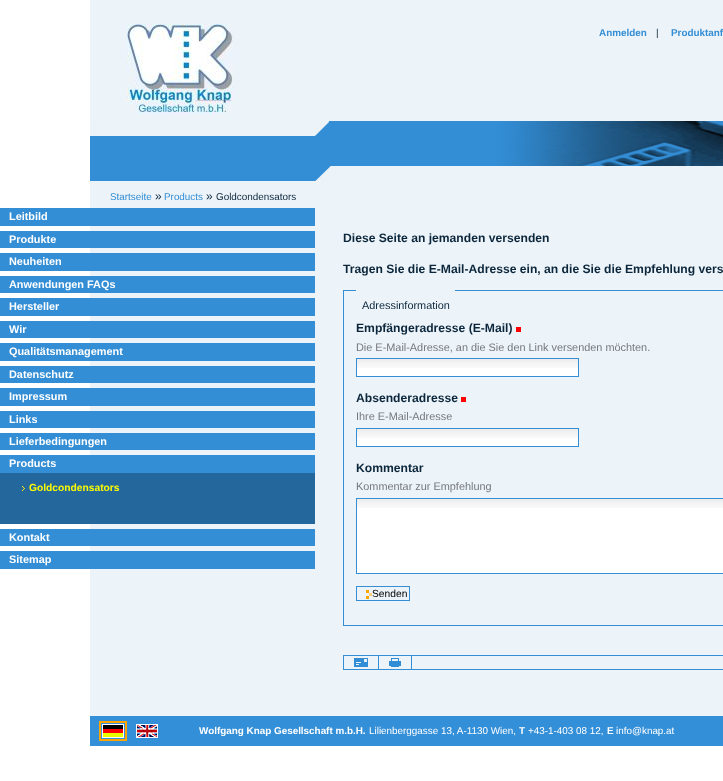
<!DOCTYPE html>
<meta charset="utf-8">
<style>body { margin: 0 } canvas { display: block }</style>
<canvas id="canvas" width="723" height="781"></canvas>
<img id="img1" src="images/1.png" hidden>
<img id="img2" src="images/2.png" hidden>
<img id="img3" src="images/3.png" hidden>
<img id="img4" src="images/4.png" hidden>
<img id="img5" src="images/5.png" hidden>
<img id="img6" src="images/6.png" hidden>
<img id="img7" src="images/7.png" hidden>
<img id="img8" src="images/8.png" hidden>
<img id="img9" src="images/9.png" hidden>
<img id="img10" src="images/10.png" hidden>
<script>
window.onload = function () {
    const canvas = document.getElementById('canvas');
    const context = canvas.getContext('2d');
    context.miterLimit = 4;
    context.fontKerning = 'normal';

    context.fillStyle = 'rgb(255, 255, 255)';
    context.fillRect(0, 0, 723, 781);
    context.fillStyle = 'rgb(236, 243, 249)';
    context.fillRect(90, 0, 633, 716);
    context.drawImage(document.getElementById('img1'), 127, 24, 106, 90);
    context.drawImage(document.getElementById('img2'), 90, 121, 633, 60);
    context.fillStyle = 'rgb(51, 142, 213)';
    context.fillRect(0, 208, 315, 18);
    context.fillRect(0, 231, 315, 17);
    context.fillRect(0, 253, 315, 18);
    context.fillRect(0, 276, 315, 17);
    context.fillRect(0, 298, 315, 18);
    context.fillRect(0, 321, 315, 17);
    context.fillRect(0, 343, 315, 18);
    context.fillRect(0, 366, 315, 17);
    context.fillRect(0, 388, 315, 18);
    context.fillRect(0, 411, 315, 17);
    context.fillRect(0, 433, 315, 17);
    context.fillRect(0, 455, 315, 18);
    context.fillStyle = 'rgb(36, 103, 156)';
    context.fillRect(0, 473, 315, 51);
    context.drawImage(document.getElementById('img3'), 22, 486, 3, 5);
    context.fillStyle = 'rgb(51, 142, 213)';
    context.fillRect(0, 529, 315, 17);
    context.fillRect(0, 551, 315, 18);
    context.strokeStyle = 'rgb(51, 142, 213)';
    context.strokeRect(343.5, 290.5, 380, 335);
    context.fillStyle = 'rgb(236, 243, 249)';
    context.fillRect(356, 290, 99, 1);
    context.fillStyle = 'rgb(255, 0, 0)';
    context.fillRect(516, 327, 5, 5);
    context.fillStyle = 'rgb(255, 255, 255)';
    context.fillRect(357, 368, 221, 8);
    context.drawImage(document.getElementById('img4'), 357, 359, 221, 9);
    context.strokeRect(356.5, 358.5, 222, 18);
    context.fillStyle = 'rgb(255, 0, 0)';
    context.fillRect(461, 397, 5, 5);
    context.fillStyle = 'rgb(255, 255, 255)';
    context.fillRect(357, 438, 221, 8);
    context.drawImage(document.getElementById('img4'), 357, 429, 221, 9);
    context.strokeRect(356.5, 428.5, 222, 18);
    context.fillRect(357, 508, 366, 65);
    context.drawImage(document.getElementById('img5'), 357, 499, 366, 9);
    context.strokeRect(356.5, 498.5, 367, 75);
    context.drawImage(document.getElementById('img6'), 366, 590, 6, 9);
    context.strokeRect(356.5, 586.5, 53, 14);
    context.fillStyle = 'rgb(51, 142, 213)';
    context.fillRect(343, 655, 380, 1);
    context.fillRect(343, 669, 380, 1);
    context.fillRect(343, 655, 1, 15);
    context.fillRect(378, 655, 1, 15);
    context.drawImage(document.getElementById('img7'), 354, 658, 14, 9);
    context.fillRect(411, 655, 1, 15);
    context.drawImage(document.getElementById('img8'), 389, 658, 12, 9);
    context.fillStyle = 'rgb(51, 143, 216)';
    context.fillRect(90, 716, 633, 30);
    context.strokeStyle = 'rgb(255, 165, 0)';
    context.lineWidth = 2;
    context.strokeRect(100, 722, 26, 18);
    context.drawImage(document.getElementById('img9'), 102, 724, 22, 14);
    context.drawImage(document.getElementById('img10'), 136, 724, 22, 14);
    context.font = 'bold 9.9px Liberation Sans';
    context.fillStyle = 'rgb(51, 142, 213)';
    context.fillText('Anmelden', 599, 36);
    context.font = '9.9px Liberation Sans';
    context.fillStyle = 'rgb(12, 39, 60)';
    context.fillText('|', 656, 36);
    context.font = 'bold 9.9px Liberation Sans';
    context.fillStyle = 'rgb(51, 142, 213)';
    context.fillText('Produktanf', 671, 36);
    context.font = '9.9px Liberation Sans';
    context.fillText('Startseite', 110, 200);
    context.font = '12px Liberation Sans';
    context.fillStyle = 'rgb(12, 39, 60)';
    context.fillText('»', 155, 200);
    context.font = '9.9px Liberation Sans';
    context.fillStyle = 'rgb(51, 142, 213)';
    context.fillText('Products', 164, 200);
    context.font = '12px Liberation Sans';
    context.fillStyle = 'rgb(12, 39, 60)';
    context.fillText('»', 206, 200);
    context.font = '9.9px Liberation Sans';
    context.fillText('Goldcondensators', 216, 200);
    context.font = 'bold 10.9px Liberation Sans';
    context.fillStyle = 'rgb(255, 255, 255)';
    context.fillText('Leitbild', 9, 220);
    context.fillText('Produkte', 9, 243);
    context.fillText('Neuheiten', 9, 265);
    context.fillText('Anwendungen FAQs', 9, 288);
    context.fillText('Hersteller', 9, 310);
    context.fillText('Wir', 9, 333);
    context.fillText('Qualitätsmanagement', 9, 355);
    context.fillText('Datenschutz', 9, 378);
    context.fillText('Impressum', 9, 400);
    context.fillText('Links', 9, 423);
    context.fillText('Lieferbedingungen', 9, 445);
    context.fillText('Products', 9, 467);
    context.font = 'bold 10.25px Liberation Sans';
    context.fillStyle = 'rgb(253, 254, 2)';
    context.fillText('Goldcondensators', 29, 491);
    context.font = 'bold 10.9px Liberation Sans';
    context.fillStyle = 'rgb(255, 255, 255)';
    context.fillText('Kontakt', 9, 541);
    context.fillText('Sitemap', 9, 563);
    context.font = 'bold 12.15px Liberation Sans';
    context.fillStyle = 'rgb(12, 39, 60)';
    context.fillText('Diese Seite an jemanden versenden', 343, 242);
    context.fillText('Tragen Sie die E-Mail-Adresse ein, an die Sie die Empfehlung vers', 343, 273);
    context.font = '10.9px Liberation Sans';
    context.fillText('Adressinformation', 362, 309);
    context.font = 'bold 12.15px Liberation Sans';
    context.fillText('Empfängeradresse (E-Mail)', 356, 332);
    context.font = '10.9px Liberation Sans';
    context.fillStyle = 'rgb(118, 121, 124)';
    context.fillText('Die E-Mail-Adresse, an die Sie den Link versenden möchten.', 356, 351);
    context.font = 'bold 12.15px Liberation Sans';
    context.fillStyle = 'rgb(12, 39, 60)';
    context.fillText('Absenderadresse', 356, 402);
    context.font = '10.9px Liberation Sans';
    context.fillStyle = 'rgb(118, 121, 124)';
    context.fillText('Ihre E-Mail-Adresse', 356, 420);
    context.font = 'bold 12.15px Liberation Sans';
    context.fillStyle = 'rgb(12, 39, 60)';
    context.fillText('Kommentar', 356, 472);
    context.font = '10.9px Liberation Sans';
    context.fillStyle = 'rgb(118, 121, 124)';
    context.fillText('Kommentar zur Empfehlung', 356, 490);
    context.font = '10.25px Liberation Sans';
    context.fillStyle = 'rgb(0, 0, 0)';
    context.fillText('Senden', 372, 597);
    context.font = 'bold 9.9px Liberation Sans';
    context.fillStyle = 'rgb(255, 255, 255)';
    context.fillText('Wolfgang Knap Gesellschaft m.b.H.', 199, 734);
    context.font = '9.9px Liberation Sans';
    context.fillText('Lilienberggasse 13, A-1130 Wien,', 369, 734);
    context.font = 'bold 9.9px Liberation Sans';
    context.fillText('T', 519, 734);
    context.font = '9.9px Liberation Sans';
    context.fillText('+43-1-403 08 12,', 528, 734);
    context.font = 'bold 9.9px Liberation Sans';
    context.fillText('E', 607, 734);
    context.font = '9.9px Liberation Sans';
    context.fillText('info@knap.at', 616, 734);
};
</script>
